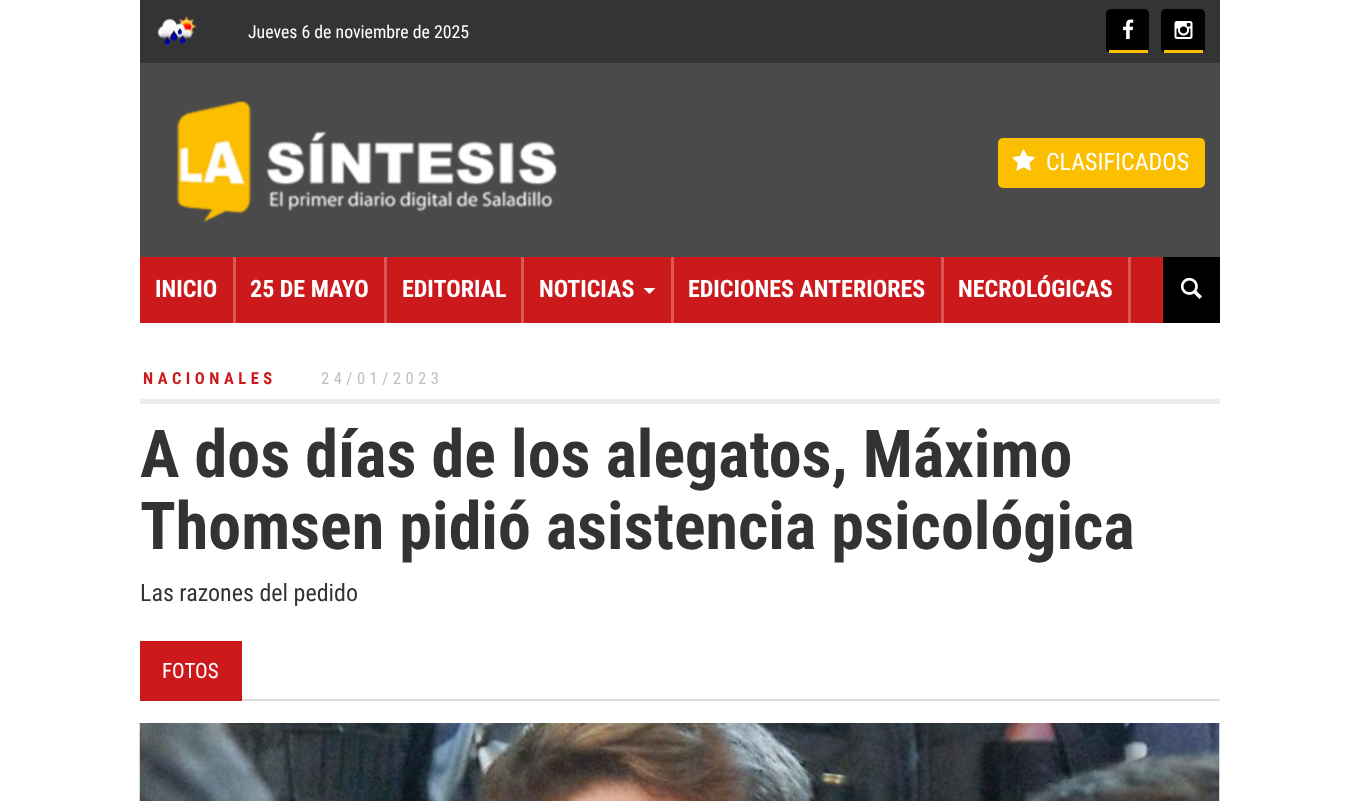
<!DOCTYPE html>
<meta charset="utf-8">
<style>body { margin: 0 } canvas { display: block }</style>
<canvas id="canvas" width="1358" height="801"></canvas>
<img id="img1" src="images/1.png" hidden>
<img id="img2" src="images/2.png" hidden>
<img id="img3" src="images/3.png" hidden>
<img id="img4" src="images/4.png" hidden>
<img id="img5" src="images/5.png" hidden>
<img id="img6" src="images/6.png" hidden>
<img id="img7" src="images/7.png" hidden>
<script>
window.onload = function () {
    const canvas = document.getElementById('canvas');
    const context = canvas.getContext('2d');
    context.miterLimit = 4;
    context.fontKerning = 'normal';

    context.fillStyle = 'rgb(255, 255, 255)';
    context.fillRect(0, 0, 1358, 801);
    context.fillStyle = 'rgb(51, 52, 54)';
    context.fillRect(140, 0, 1080, 63);
    context.drawImage(document.getElementById('img1'), 157, 16, 40, 30);
    context.fillStyle = 'rgb(0, 0, 0)';
    context.beginPath();
    context.roundRect(1106, 9, 43, 44, 5);
    context.fill();
    context.fillStyle = 'rgb(251, 191, 0)';
    context.fillRect(1109, 50, 39, 3);
    context.drawImage(document.getElementById('img2'), 1123, 19, 11, 20);
    context.fillStyle = 'rgb(0, 0, 0)';
    context.beginPath();
    context.roundRect(1161, 9, 44, 44, 5);
    context.fill();
    context.fillStyle = 'rgb(251, 191, 0)';
    context.fillRect(1164, 50, 39, 3);
    context.drawImage(document.getElementById('img3'), 1174, 21, 19, 18);
    context.fillStyle = 'rgb(74, 74, 74)';
    context.fillRect(140, 63, 1080, 194);
    context.drawImage(document.getElementById('img4'), 176, 101, 381, 122);
    context.fillStyle = 'rgb(251, 191, 0)';
    context.beginPath();
    context.roundRect(998, 138, 207, 50, 5);
    context.fill();
    context.drawImage(document.getElementById('img5'), 1012, 149, 23, 22);
    context.fillStyle = 'rgb(204, 25, 28)';
    context.fillRect(140, 257, 1023, 66);
    context.fillStyle = 'rgb(222, 85, 88)';
    context.fillRect(233, 257, 3, 66);
    context.fillRect(384, 257, 3, 66);
    context.fillRect(521, 257, 3, 66);
    context.fillRect(671, 257, 3, 66);
    context.fillStyle = 'rgb(255, 255, 255)';
    context.beginPath();
    context.moveTo(643.5, 288);
    context.lineTo(655.5, 288);
    context.lineTo(649.5, 294);
    context.closePath();
    context.fill();
    context.fillStyle = 'rgb(222, 85, 88)';
    context.fillRect(941, 257, 3, 66);
    context.fillRect(1128, 257, 3, 66);
    context.fillStyle = 'rgb(0, 0, 0)';
    context.fillRect(1163, 257, 57, 66);
    context.drawImage(document.getElementById('img6'), 1180, 277, 22, 22);
    context.fillStyle = 'rgb(236, 236, 236)';
    context.fillRect(140, 399, 1080, 5);
    context.fillStyle = 'rgb(221, 221, 221)';
    context.fillRect(242, 699, 978, 2);
    context.fillStyle = 'rgb(204, 25, 28)';
    context.fillRect(140, 641, 102, 60);
    context.drawImage(document.getElementById('img7'), 139, 723, 1081, 78);
    context.font = '17.8px Roboto Condensed';
    context.fillStyle = 'rgb(255, 255, 255)';
    context.fillText('Jueves 6 de noviembre de 2025', 248, 38);
    context.font = '24px Roboto Condensed';
    context.fillText('CLASIFICADOS', 1046, 170);
    context.font = 'bold 24px Roboto Condensed';
    context.fillText('INICIO', 155, 297);
    context.fillText('25 DE MAYO', 250, 297);
    context.fillText('EDITORIAL', 402, 297);
    context.fillText('NOTICIAS', 539, 297);
    context.fillText('EDICIONES ANTERIORES', 688, 297);
    context.fillText('NECROLÓGICAS', 958, 297);
    context.letterSpacing = '4.5px';
    context.font = 'bold 16.5px Roboto Condensed';
    context.fillStyle = 'rgb(204, 25, 28)';
    context.fillText('NACIONALES', 143, 384);
    context.font = '16.5px Roboto Condensed';
    context.fillStyle = 'rgb(191, 191, 191)';
    context.fillText('24/01/2023', 321, 384);
    context.letterSpacing = '0px';
    context.font = 'bold 66px Roboto Condensed';
    context.fillStyle = 'rgb(51, 51, 51)';
    context.fillText('A dos días de los alegatos, Máximo', 140, 477);
    context.fillText('Thomsen pidió asistencia psicológica', 140, 549);
    context.font = '24px Roboto Condensed';
    context.fillText('Las razones del pedido', 140, 601);
    context.font = '21px Roboto Condensed';
    context.fillStyle = 'rgb(255, 255, 255)';
    context.fillText('FOTOS', 162, 678);
};
</script>
